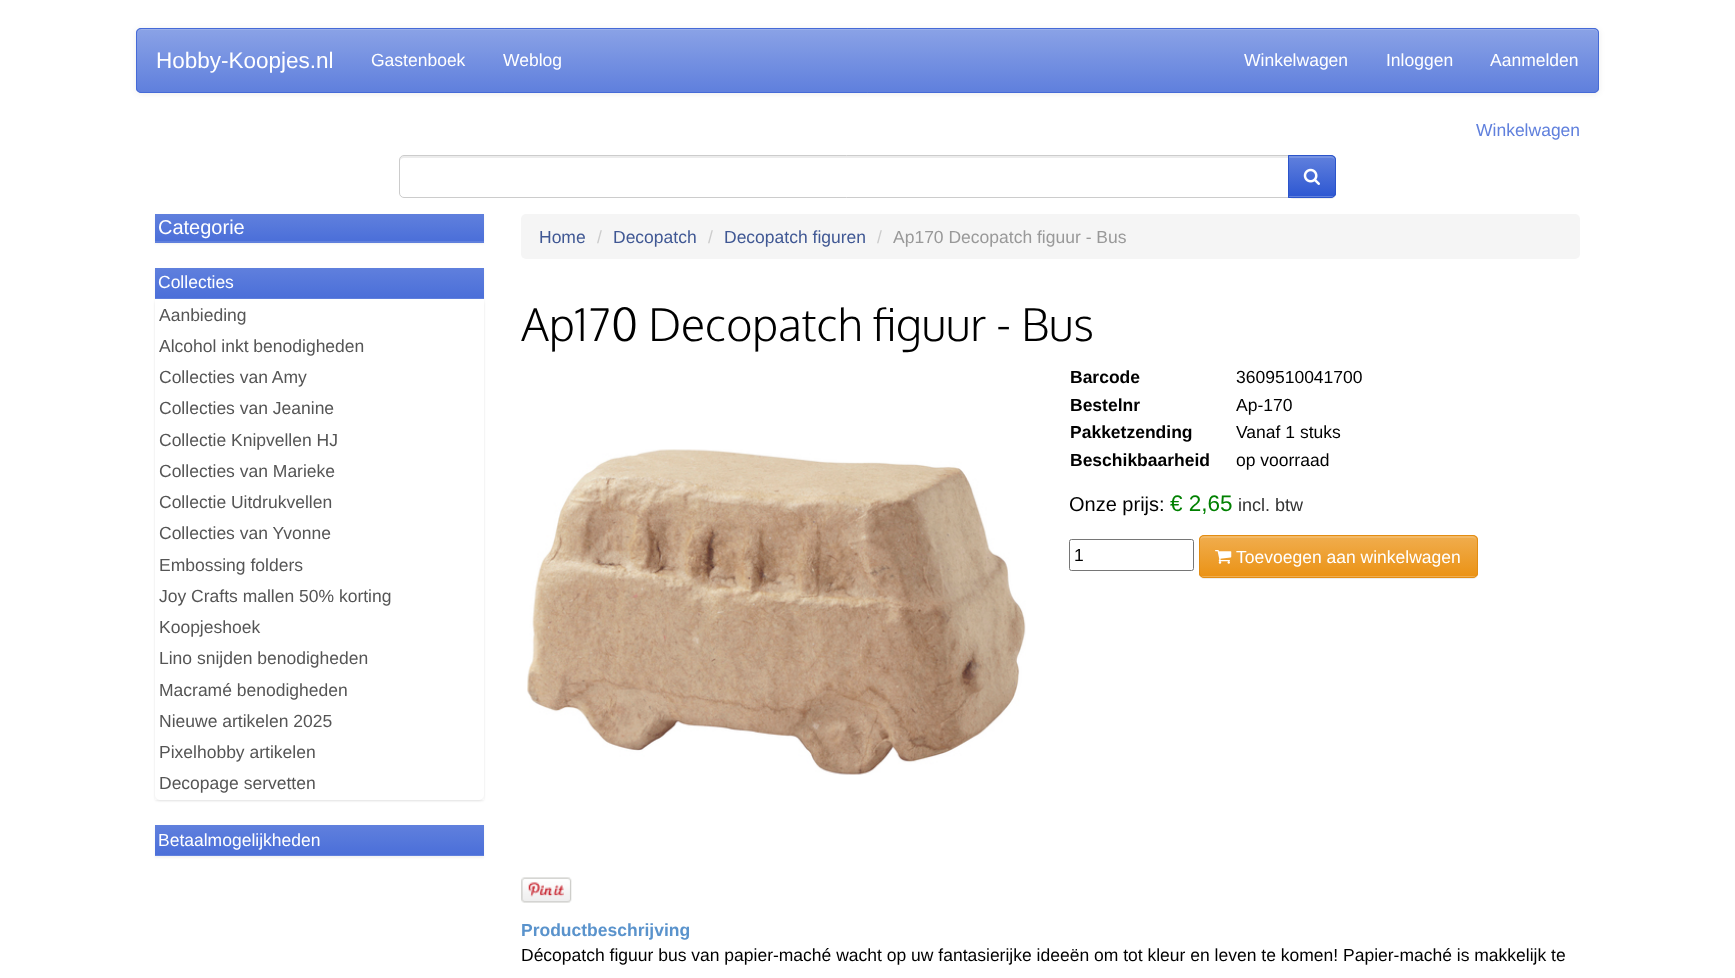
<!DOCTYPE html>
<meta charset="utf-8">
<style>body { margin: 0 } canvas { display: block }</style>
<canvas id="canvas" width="1735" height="978"></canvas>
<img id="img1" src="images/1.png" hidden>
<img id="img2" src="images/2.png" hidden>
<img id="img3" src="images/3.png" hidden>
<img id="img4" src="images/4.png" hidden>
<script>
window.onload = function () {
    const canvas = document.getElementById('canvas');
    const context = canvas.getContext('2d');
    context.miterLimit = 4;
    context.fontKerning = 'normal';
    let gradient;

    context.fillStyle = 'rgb(255, 255, 255)';
    context.fillRect(0, 0, 1735, 978);
    context.fillStyle = 'rgba(0, 0, 0, 0.07)';
    context.filter = 'blur(3px)';
    context.beginPath();
    context.roundRect(136, 29, 1463, 65, 5);
    context.fill();
    context.filter = 'none';
    context.fillStyle = 'rgb(96, 128, 221)';
    context.beginPath();
    context.roundRect(136, 28, 1463, 65, 5);
    context.fill();
    context.save();
    context.beginPath();
    context.roundRect(136, 28, 1463, 65, 5);
    context.clip();
    gradient = context.createLinearGradient(868, 29, 868, 91);
    gradient.addColorStop(0, 'rgb(138, 162, 230)');
    gradient.addColorStop(1, 'rgb(96, 128, 221)');
    context.fillStyle = gradient;
    context.fillRect(136, 29, 1463, 62);
    context.restore();
    context.fillStyle = 'rgb(156, 176, 234)';
    context.beginPath();
    context.moveTo(141, 30);
    context.lineTo(1594, 30);
    context.bezierCurveTo(1596, 30, 1598, 32, 1598, 34);
    context.lineTo(1598, 33);
    context.bezierCurveTo(1598, 31, 1596, 29, 1594, 29);
    context.lineTo(142, 29);
    context.bezierCurveTo(140, 29, 138, 31, 138, 33);
    context.lineTo(138, 34);
    context.bezierCurveTo(138, 32, 139, 30, 141, 30);
    context.closePath();
    context.fill();
    context.beginPath();
    context.roundRect(136.5, 28.5, 1462, 64, 4.5);
    context.strokeStyle = 'rgb(69, 106, 215)';
    context.stroke();
    context.fillStyle = 'rgb(236, 236, 236)';
    context.beginPath();
    context.moveTo(404, 158);
    context.lineTo(1288, 158);
    context.lineTo(1288, 156);
    context.lineTo(404, 156);
    context.bezierCurveTo(401, 156, 400, 158, 400, 161);
    context.bezierCurveTo(400, 159, 402, 158, 404, 158);
    context.closePath();
    context.fill();
    context.beginPath();
    context.roundRect(399.5, 155.5, 889, 42, [4.5, 0, 0, 4.5]);
    context.strokeStyle = 'rgb(204, 204, 204)';
    context.stroke();
    context.fillStyle = 'rgba(0, 0, 0, 0.07)';
    context.filter = 'blur(0.5px)';
    context.beginPath();
    context.roundRect(1288, 156, 48, 43, 5);
    context.fill();
    context.filter = 'none';
    context.fillStyle = 'rgb(96, 128, 221)';
    context.beginPath();
    context.roundRect(1288, 155, 48, 43, [0, 5, 5, 0]);
    context.fill();
    context.save();
    context.beginPath();
    context.roundRect(1288, 155, 48, 43, [0, 5, 5, 0]);
    context.clip();
    gradient = context.createLinearGradient(1312, 156, 1312, 196);
    gradient.addColorStop(0, 'rgb(96, 128, 221)');
    gradient.addColorStop(1, 'rgb(46, 88, 210)');
    context.fillStyle = gradient;
    context.fillRect(1289, 156, 47, 40);
    context.restore();
    context.fillStyle = 'rgb(119, 147, 226)';
    context.beginPath();
    context.moveTo(1289, 158);
    context.lineTo(1331, 158);
    context.bezierCurveTo(1333, 158, 1335, 159, 1335, 161);
    context.lineTo(1335, 160);
    context.bezierCurveTo(1335, 158, 1333, 156, 1331, 156);
    context.lineTo(1289, 156);
    context.closePath();
    context.fill();
    context.beginPath();
    context.roundRect(1288.5, 155.5, 47, 42, [0, 4.5, 4.5, 0]);
    context.strokeStyle = 'rgb(43, 84, 202)';
    context.stroke();
    context.drawImage(document.getElementById('img1'), 1303, 168, 17, 17);
    context.fillStyle = 'rgba(0, 0, 0, 0.05)';
    context.filter = 'blur(1px)';
    context.beginPath();
    context.rect(155, 215, 329, 29);
    context.fill();
    context.filter = 'none';
    context.fillStyle = 'rgb(96, 128, 221)';
    context.fillRect(155, 241, 329, 2);
    gradient = context.createLinearGradient(319, 214, 319, 241);
    gradient.addColorStop(0, 'rgb(96, 128, 221)');
    gradient.addColorStop(1, 'rgb(75, 111, 217)');
    context.fillStyle = gradient;
    context.fillRect(155, 214, 329, 27);
    context.fillStyle = 'rgba(0, 0, 0, 0.05)';
    context.filter = 'blur(1px)';
    context.beginPath();
    context.rect(155, 269, 329, 532);
    context.fill();
    context.filter = 'none';
    context.fillStyle = 'rgb(255, 255, 255)';
    context.fillRect(155, 795, 329, 5);
    context.fillStyle = 'rgb(96, 128, 221)';
    context.fillRect(155, 298, 329, 1);
    gradient = context.createLinearGradient(319, 267, 319, 298);
    gradient.addColorStop(0, 'rgb(96, 128, 221)');
    gradient.addColorStop(1, 'rgb(75, 111, 217)');
    context.fillStyle = gradient;
    context.fillRect(155, 268, 329, 30);
    context.fillStyle = 'rgba(0, 0, 0, 0.07)';
    context.filter = 'blur(1px)';
    context.beginPath();
    context.roundRect(155, 300, 329, 501, 5);
    context.fill();
    context.filter = 'none';
    context.fillStyle = 'rgb(255, 255, 255)';
    context.fillRect(155, 299, 329, 469);
    context.beginPath();
    context.roundRect(155, 768, 329, 32, [0, 0, 5, 5]);
    context.fill();
    context.fillStyle = 'rgba(0, 0, 0, 0.05)';
    context.filter = 'blur(1px)';
    context.beginPath();
    context.rect(155, 826, 329, 32);
    context.fill();
    context.filter = 'none';
    context.fillStyle = 'rgb(96, 128, 221)';
    context.fillRect(155, 855, 329, 1);
    gradient = context.createLinearGradient(319, 825, 319, 855);
    gradient.addColorStop(0, 'rgb(96, 128, 221)');
    gradient.addColorStop(1, 'rgb(75, 111, 217)');
    context.fillStyle = gradient;
    context.fillRect(155, 825, 329, 30);
    context.fillStyle = 'rgb(245, 245, 245)';
    context.beginPath();
    context.roundRect(521, 214, 1059, 45, 5);
    context.fill();
    context.drawImage(document.getElementById('img2'), 527, 449, 499, 326);
    context.drawImage(document.getElementById('img3'), 521, 877, 51, 26);
    context.beginPath();
    context.roundRect(1069.5, 539.5, 124, 31, 2);
    context.strokeStyle = 'rgb(118, 118, 118)';
    context.stroke();
    context.fillStyle = 'rgba(0, 0, 0, 0.07)';
    context.filter = 'blur(0.5px)';
    context.beginPath();
    context.roundRect(1199, 536, 279, 43, 5);
    context.fill();
    context.filter = 'none';
    context.fillStyle = 'rgb(240, 173, 78)';
    context.beginPath();
    context.roundRect(1199, 535, 279, 43, 5);
    context.fill();
    context.save();
    context.beginPath();
    context.roundRect(1199, 535, 279, 43, 5);
    context.clip();
    gradient = context.createLinearGradient(1338, 536, 1338, 576);
    gradient.addColorStop(0, 'rgb(240, 173, 78)');
    gradient.addColorStop(1, 'rgb(235, 147, 22)');
    context.fillStyle = gradient;
    context.fillRect(1199, 536, 279, 40);
    context.restore();
    context.fillStyle = 'rgb(242, 185, 103)';
    context.beginPath();
    context.moveTo(1204, 538);
    context.lineTo(1472, 538);
    context.bezierCurveTo(1475, 538, 1476, 539, 1476, 541);
    context.bezierCurveTo(1476, 538, 1475, 536, 1472, 536);
    context.lineTo(1204, 536);
    context.bezierCurveTo(1201, 536, 1200, 538, 1200, 541);
    context.bezierCurveTo(1200, 539, 1202, 538, 1204, 538);
    context.closePath();
    context.fill();
    context.beginPath();
    context.roundRect(1199.5, 535.5, 278, 42, 4.5);
    context.strokeStyle = 'rgb(227, 141, 19)';
    context.stroke();
    context.drawImage(document.getElementById('img4'), 1215, 550, 17, 14);
    context.font = '22.5px Liberation Sans';
    context.fillStyle = 'rgb(255, 255, 255)';
    context.fillText('Hobby-Koopjes.nl', 156, 68);
    context.font = '17.5px Liberation Sans';
    context.fillText('Gastenboek', 371, 66);
    context.fillText('Weblog', 503, 66);
    context.fillText('Winkelwagen', 1244, 66);
    context.fillText('Inloggen', 1386, 66);
    context.fillText('Aanmelden', 1490, 66);
    context.fillStyle = 'rgb(96, 128, 221)';
    context.fillText('Winkelwagen', 1476, 136);
    context.font = '20px Liberation Sans';
    context.fillStyle = 'rgb(255, 255, 255)';
    context.fillText('Categorie', 158, 234);
    context.font = '17.5px Liberation Sans';
    context.fillText('Collecties', 158, 288);
    context.fillStyle = 'rgb(85, 85, 85)';
    context.fillText('Aanbieding', 159, 321);
    context.fillText('Alcohol inkt benodigheden', 159, 352);
    context.fillText('Collecties van Amy', 159, 383);
    context.fillText('Collecties van Jeanine', 159, 414);
    context.fillText('Collectie Knipvellen HJ', 159, 446);
    context.fillText('Collecties van Marieke', 159, 477);
    context.fillText('Collectie Uitdrukvellen', 159, 508);
    context.fillText('Collecties van Yvonne', 159, 539);
    context.fillText('Embossing folders', 159, 571);
    context.fillText('Joy Crafts mallen 50% korting', 159, 602);
    context.fillText('Koopjeshoek', 159, 633);
    context.fillText('Lino snijden benodigheden', 159, 664);
    context.fillText('Macramé benodigheden', 159, 696);
    context.fillText('Nieuwe artikelen 2025', 159, 727);
    context.fillText('Pixelhobby artikelen', 159, 758);
    context.fillText('Decopage servetten', 159, 789);
    context.fillStyle = 'rgb(255, 255, 255)';
    context.fillText('Betaalmogelijkheden', 158, 846);
    context.fillStyle = 'rgb(64, 88, 148)';
    context.fillText('Home', 539, 243);
    context.fillStyle = 'rgb(204, 204, 204)';
    context.fillText('/', 597, 243);
    context.fillStyle = 'rgb(64, 88, 148)';
    context.fillText('Decopatch', 613, 243);
    context.fillStyle = 'rgb(204, 204, 204)';
    context.fillText('/', 708, 243);
    context.fillStyle = 'rgb(64, 88, 148)';
    context.fillText('Decopatch figuren', 724, 243);
    context.fillStyle = 'rgb(204, 204, 204)';
    context.fillText('/', 877, 243);
    context.fillStyle = 'rgb(153, 153, 153)';
    context.fillText('Ap170 Decopatch figuur - Bus', 893, 243);
    context.font = '300 45px Oxygen';
    context.fillStyle = 'rgb(0, 0, 0)';
    context.fillText('Ap170 Decopatch figuur - Bus', 521, 341);
    context.font = 'bold 17.5px Liberation Sans';
    context.fillText('Barcode', 1070, 383);
    context.font = '17.5px Liberation Sans';
    context.fillText('3609510041700', 1236, 383);
    context.font = 'bold 17.5px Liberation Sans';
    context.fillText('Bestelnr', 1070, 411);
    context.font = '17.5px Liberation Sans';
    context.fillText('Ap-170', 1236, 411);
    context.font = 'bold 17.5px Liberation Sans';
    context.fillText('Pakketzending', 1070, 438);
    context.font = '17.5px Liberation Sans';
    context.fillText('Vanaf 1 stuks', 1236, 438);
    context.font = 'bold 17.5px Liberation Sans';
    context.fillText('Beschikbaarheid', 1070, 466);
    context.font = '17.5px Liberation Sans';
    context.fillText('op voorraad', 1236, 466);
    context.font = '20px Liberation Sans';
    context.fillText('Onze prijs:', 1069, 511);
    context.font = '22.5px Liberation Sans';
    context.fillStyle = 'rgb(0, 128, 0)';
    context.fillText('€ 2,65', 1170, 511);
    context.font = '18px Liberation Sans';
    context.fillStyle = 'rgb(51, 51, 51)';
    context.fillText('incl. btw', 1238, 511);
    context.font = '17.5px Liberation Sans';
    context.fillStyle = 'rgb(0, 0, 0)';
    context.fillText('1', 1074, 561);
    context.fillStyle = 'rgb(255, 255, 255)';
    context.fillText('Toevoegen aan winkelwagen', 1236, 563);
    context.font = 'bold 17.5px Liberation Sans';
    context.fillStyle = 'rgb(90, 147, 204)';
    context.fillText('Productbeschrijving', 521, 936);
    context.font = '17.5px Liberation Sans';
    context.fillStyle = 'rgb(0, 0, 0)';
    context.fillText('Décopatch figuur bus van papier-maché wacht op uw fantasierijke ideeën om tot kleur en leven te komen! Papier-maché is makkelijk te', 521, 961);
};
</script>
